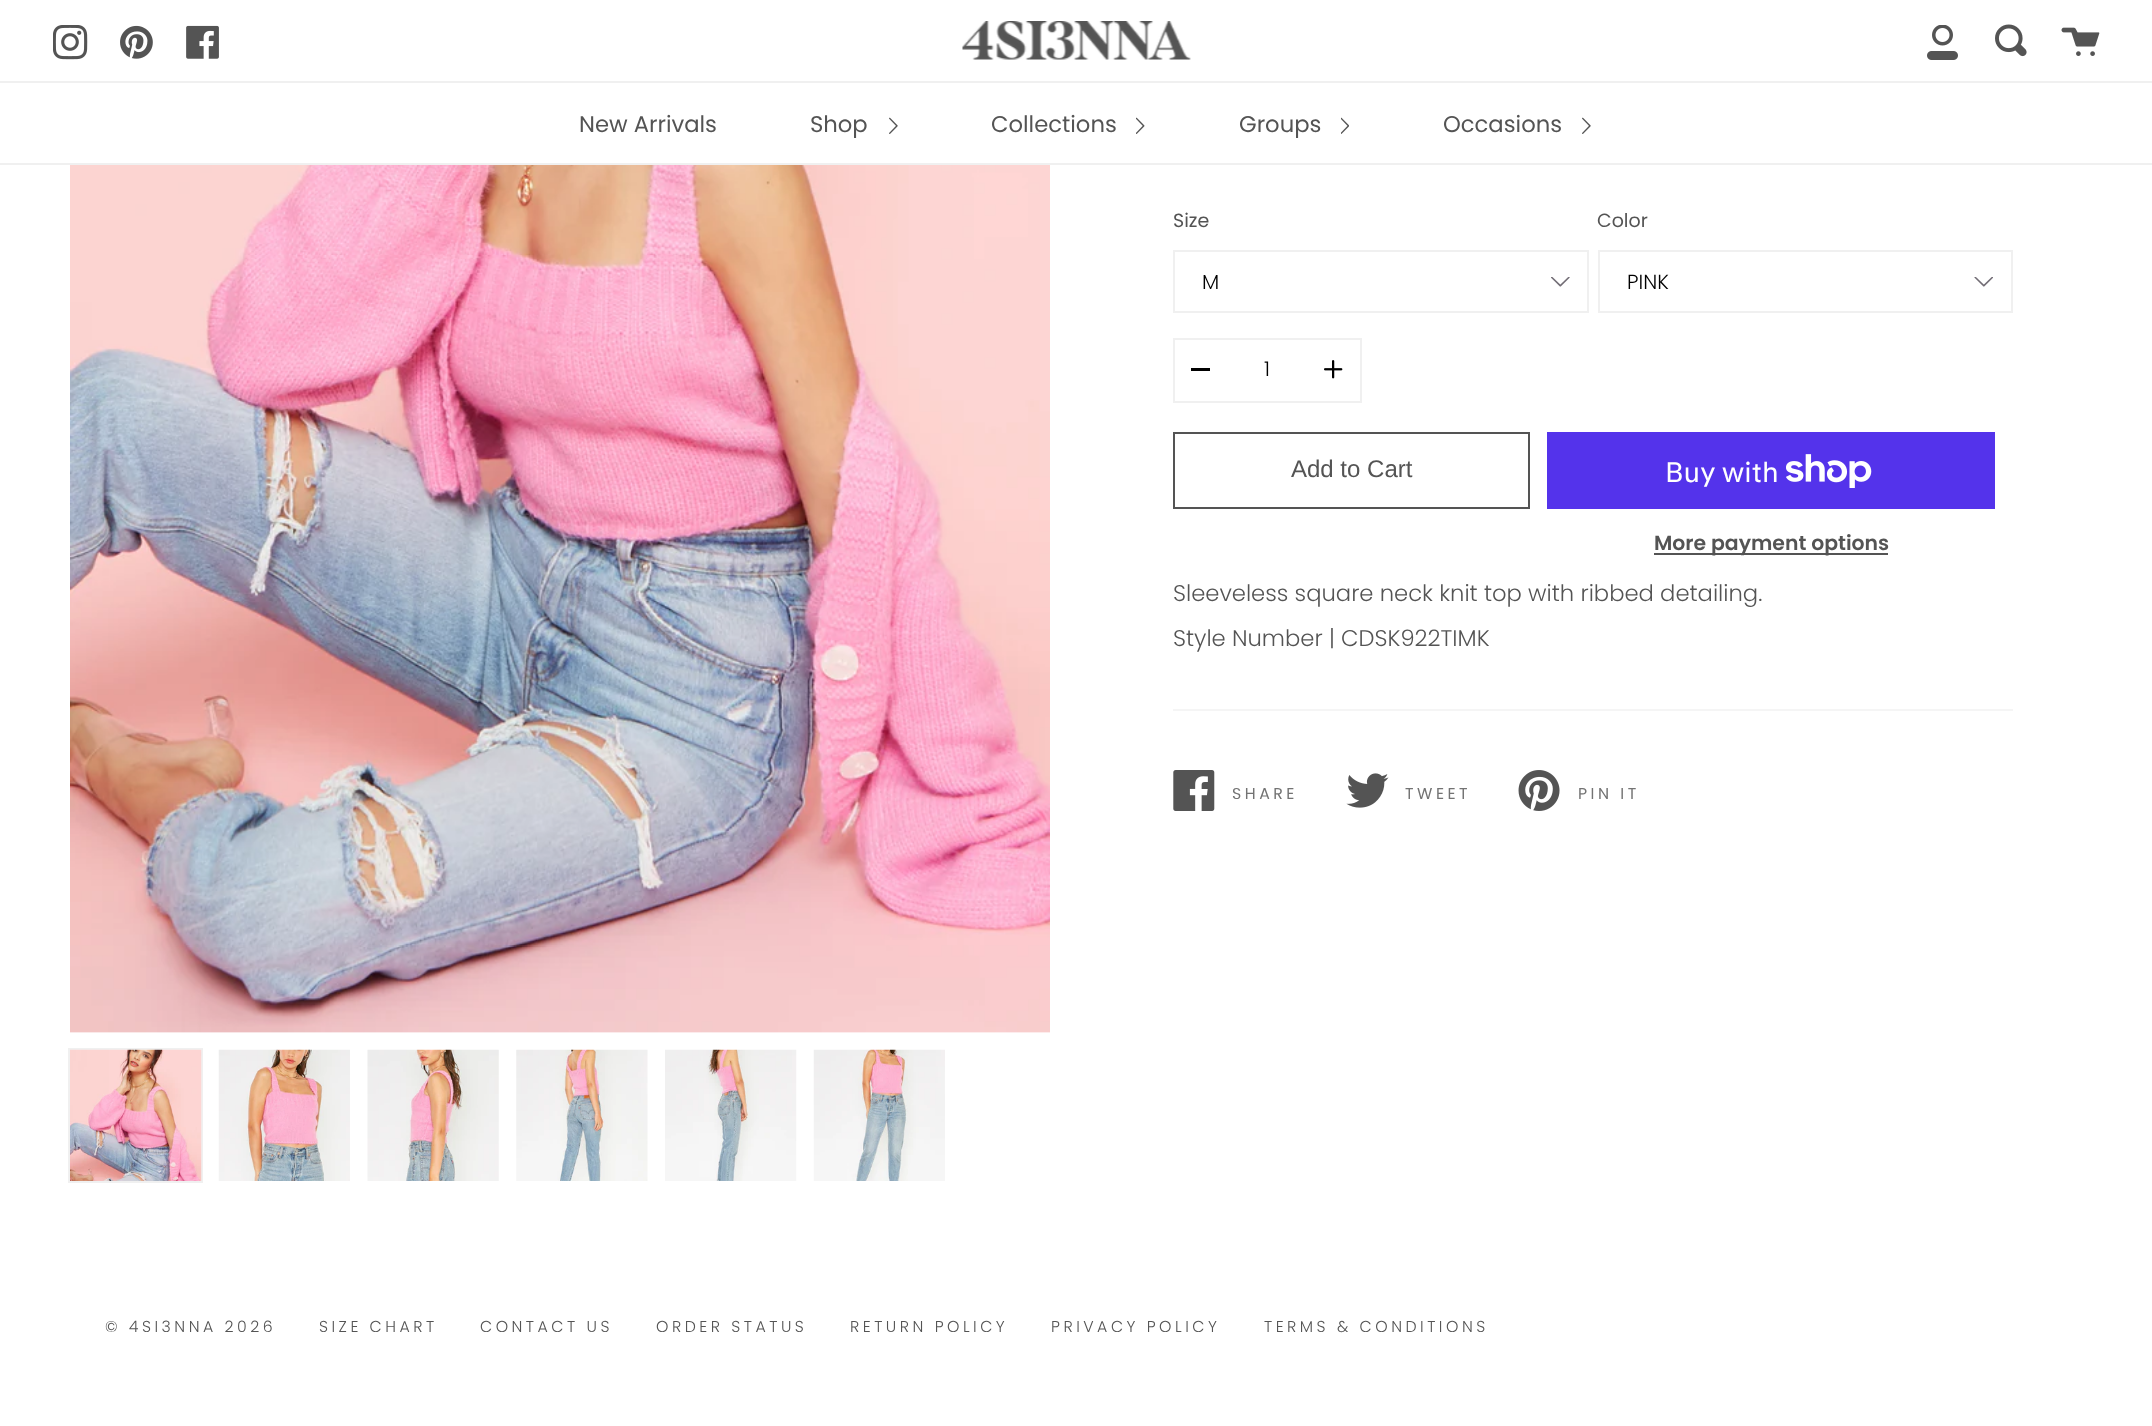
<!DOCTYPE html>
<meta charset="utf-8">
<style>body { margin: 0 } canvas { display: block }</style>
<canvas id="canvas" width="2152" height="1426"></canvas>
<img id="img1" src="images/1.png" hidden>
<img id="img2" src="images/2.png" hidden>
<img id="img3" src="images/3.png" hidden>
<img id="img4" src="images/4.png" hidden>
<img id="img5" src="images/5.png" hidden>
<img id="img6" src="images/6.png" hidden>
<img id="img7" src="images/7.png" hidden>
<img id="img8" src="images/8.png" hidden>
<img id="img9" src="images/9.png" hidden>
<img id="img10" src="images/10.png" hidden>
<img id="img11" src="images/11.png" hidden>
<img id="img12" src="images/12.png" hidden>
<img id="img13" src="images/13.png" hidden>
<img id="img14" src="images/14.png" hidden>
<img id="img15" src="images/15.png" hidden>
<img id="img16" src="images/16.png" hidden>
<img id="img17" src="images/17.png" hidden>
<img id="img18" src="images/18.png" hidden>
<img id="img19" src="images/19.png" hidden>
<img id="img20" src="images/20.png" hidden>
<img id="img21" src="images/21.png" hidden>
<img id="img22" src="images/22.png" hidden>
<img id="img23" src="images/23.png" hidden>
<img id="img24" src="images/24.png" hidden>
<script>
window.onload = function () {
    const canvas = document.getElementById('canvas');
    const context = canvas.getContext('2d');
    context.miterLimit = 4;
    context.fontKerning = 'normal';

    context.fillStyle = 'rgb(255, 255, 255)';
    context.fillRect(0, 0, 2152, 1426);
    context.drawImage(document.getElementById('img1'), 53, 25, 35, 35);
    context.drawImage(document.getElementById('img2'), 120, 25, 33, 34);
    context.drawImage(document.getElementById('img3'), 186, 25, 33, 34);
    context.drawImage(document.getElementById('img4'), 962, 21, 229, 39);
    context.drawImage(document.getElementById('img5'), 1927, 25, 31, 35);
    context.drawImage(document.getElementById('img6'), 1995, 24, 32, 33);
    context.drawImage(document.getElementById('img7'), 2061, 27, 39, 29);
    context.fillStyle = 'rgb(240, 240, 240)';
    context.fillRect(0, 81, 2152, 2);
    context.fillRect(0, 163, 2152, 2);
    context.drawImage(document.getElementById('img8'), 889, 117, 9, 17);
    context.drawImage(document.getElementById('img9'), 1136, 117, 9, 17);
    context.drawImage(document.getElementById('img10'), 1341, 117, 8, 17);
    context.drawImage(document.getElementById('img8'), 1582, 117, 9, 17);
    context.drawImage(document.getElementById('img11'), 70, 165, 980, 868);
    context.strokeStyle = 'rgb(240, 240, 240)';
    context.lineWidth = 2;
    context.strokeRect(69, 1049, 133, 133);
    context.drawImage(document.getElementById('img12'), 70, 1049, 132, 132);
    context.drawImage(document.getElementById('img13'), 218, 1049, 132, 132);
    context.drawImage(document.getElementById('img14'), 367, 1049, 132, 132);
    context.drawImage(document.getElementById('img15'), 516, 1049, 132, 132);
    context.drawImage(document.getElementById('img16'), 665, 1049, 132, 132);
    context.drawImage(document.getElementById('img17'), 813, 1049, 132, 132);
    context.drawImage(document.getElementById('img18'), 1551, 277, 19, 10);
    context.strokeRect(1174, 251, 414, 61);
    context.drawImage(document.getElementById('img19'), 1974, 277, 19, 10);
    context.strokeRect(1599, 251, 413, 61);
    context.strokeRect(1174, 339, 187, 63);
    context.fillStyle = 'rgb(0, 0, 0)';
    context.fillRect(1191, 368, 19, 3);
    context.drawImage(document.getElementById('img20'), 1324, 360, 19, 19);
    context.strokeStyle = 'rgb(84, 84, 84)';
    context.strokeRect(1174, 433, 355, 75);
    context.fillStyle = 'rgb(84, 51, 235)';
    context.fillRect(1547, 432, 448, 77);
    context.drawImage(document.getElementById('img21'), 1786, 454, 86, 34);
    context.fillStyle = 'rgb(84, 84, 84)';
    context.fillRect(1654, 553, 234, 2);
    context.fillStyle = 'rgb(245, 245, 245)';
    context.fillRect(1173, 709, 840, 2);
    context.drawImage(document.getElementById('img22'), 1173, 770, 42, 41);
    context.drawImage(document.getElementById('img23'), 1346, 773, 43, 35);
    context.drawImage(document.getElementById('img24'), 1518, 770, 42, 41);
    context.font = '22.7px Poppins';
    context.fillStyle = 'rgb(84, 84, 84)';
    context.fillText('New Arrivals', 579, 132);
    context.fillText('Shop', 810, 132);
    context.fillText('Collections', 991, 132);
    context.fillText('Groups', 1239, 132);
    context.fillText('Occasions', 1443, 132);
    context.font = '19px Poppins';
    context.fillText('Size', 1173, 227);
    context.font = '300 20.4px Poppins';
    context.fillStyle = 'rgb(0, 0, 0)';
    context.fillText('M', 1202, 289);
    context.font = '19px Poppins';
    context.fillStyle = 'rgb(84, 84, 84)';
    context.fillText('Color', 1597, 227);
    context.font = '300 20.4px Poppins';
    context.fillStyle = 'rgb(0, 0, 0)';
    context.fillText('PINK', 1627, 289);
    context.fillText('1', 1264, 376);
    context.font = '24px Liberation Sans';
    context.fillStyle = 'rgb(84, 84, 84)';
    context.fillText('Add to Cart', 1291, 477);
    context.font = '28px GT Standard';
    context.fillStyle = 'rgb(255, 255, 255)';
    context.fillText('Buy with', 1665, 482);
    context.font = '600 20.4px Poppins';
    context.fillStyle = 'rgb(84, 84, 84)';
    context.fillText('More payment options', 1654, 550);
    context.font = '300 22.7px Poppins';
    context.fillText('Sleeveless square neck knit top with ribbed detailing.', 1173, 601);
    context.fillText('Style Number | CDSK922TIMK', 1173, 646);
    context.letterSpacing = '3.5px';
    context.font = '15.75px Poppins';
    context.fillStyle = 'rgb(115, 115, 115)';
    context.fillText('SHARE', 1232, 799);
    context.fillText('TWEET', 1405, 799);
    context.fillText('PIN IT', 1578, 799);
    context.font = '300 15.75px Poppins';
    context.fillStyle = 'rgb(84, 84, 84)';
    context.fillText('© 4SI3NNA 2026', 105, 1332);
    context.fillText('SIZE CHART', 319, 1332);
    context.fillText('CONTACT US', 480, 1332);
    context.fillText('ORDER STATUS', 656, 1332);
    context.fillText('RETURN POLICY', 850, 1332);
    context.fillText('PRIVACY POLICY', 1051, 1332);
    context.fillText('TERMS & CONDITIONS', 1264, 1332);
};
</script>
